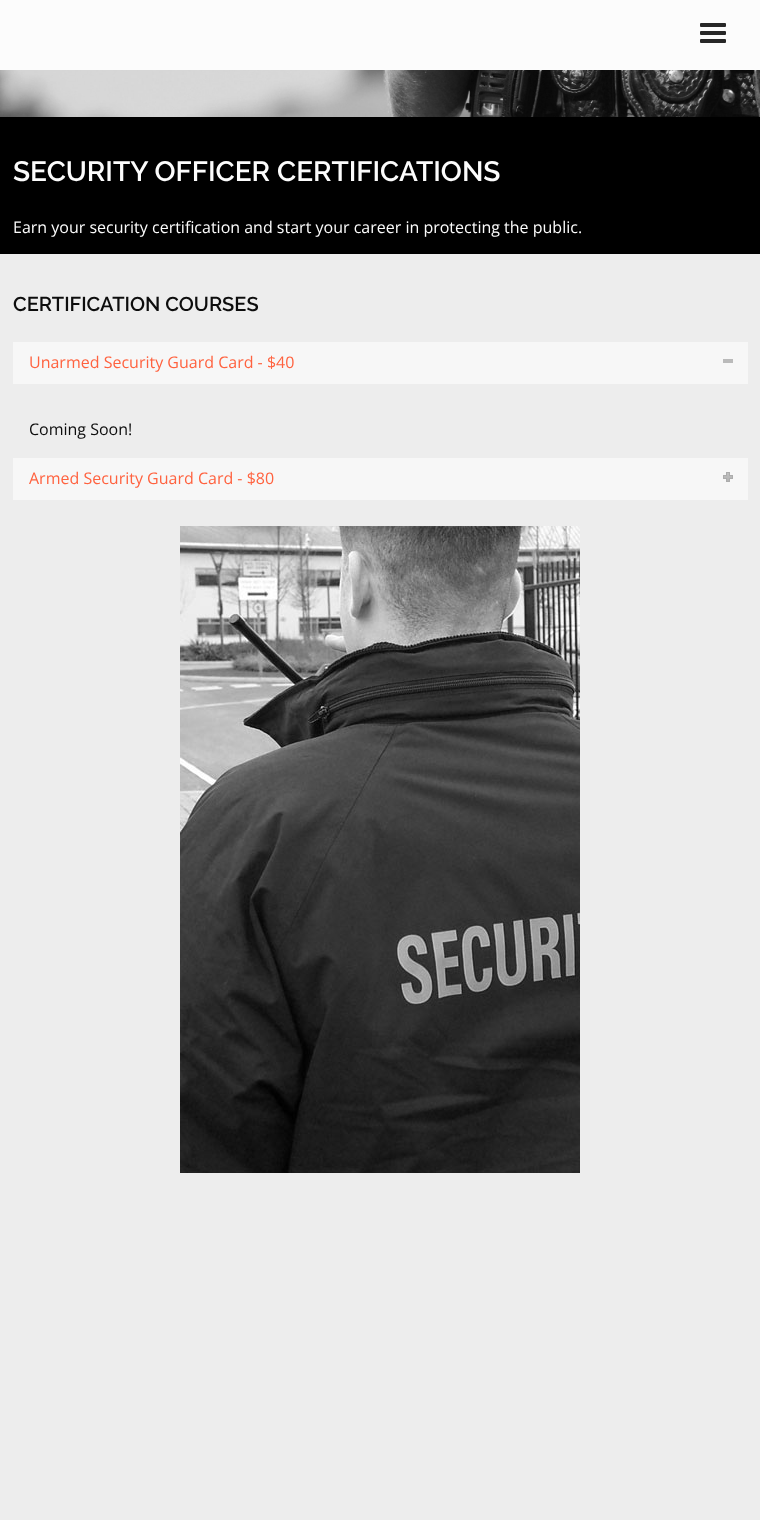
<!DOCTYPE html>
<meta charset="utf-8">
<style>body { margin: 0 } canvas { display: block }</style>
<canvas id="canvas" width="760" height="1520"></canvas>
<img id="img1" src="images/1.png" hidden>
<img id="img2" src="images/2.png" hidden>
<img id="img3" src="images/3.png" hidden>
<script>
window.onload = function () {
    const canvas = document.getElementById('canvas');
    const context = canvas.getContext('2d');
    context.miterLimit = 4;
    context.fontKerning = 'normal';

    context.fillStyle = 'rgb(237, 237, 237)';
    context.fillRect(0, 0, 760, 1520);
    context.fillStyle = 'rgb(252, 252, 252)';
    context.fillRect(0, 0, 760, 70);
    context.fillStyle = 'rgb(39, 39, 39)';
    context.beginPath();
    context.roundRect(700, 23, 26, 4, 1);
    context.fill();
    context.beginPath();
    context.roundRect(700, 31, 26, 4, 1);
    context.fill();
    context.beginPath();
    context.roundRect(700, 39, 26, 4, 1);
    context.fill();
    context.drawImage(document.getElementById('img1'), 0, 70, 760, 47);
    context.fillStyle = 'rgb(0, 0, 0)';
    context.fillRect(0, 117, 760, 137);
    context.fillStyle = 'rgb(247, 247, 247)';
    context.fillRect(13, 342, 735, 42);
    context.fillStyle = 'rgb(186, 186, 186)';
    context.fillRect(723, 359, 10, 4);
    context.fillStyle = 'rgb(247, 247, 247)';
    context.fillRect(13, 458, 735, 42);
    context.drawImage(document.getElementById('img2'), 723, 472, 10, 10);
    context.drawImage(document.getElementById('img3'), 180, 526, 400, 647);
    context.font = '600 28px Raleway';
    context.fillStyle = 'rgb(252, 252, 252)';
    context.fillText('SECURITY OFFICER CERTIFICATIONS', 13, 181);
    context.font = '16px Open Sans';
    context.fillText('Earn your security certification and start your career in protecting the public.', 13, 233);
    context.font = '600 20px Raleway';
    context.fillStyle = 'rgb(13, 13, 13)';
    context.fillText('CERTIFICATION COURSES', 13, 311);
    context.font = '16px Open Sans';
    context.fillStyle = 'rgb(255, 98, 63)';
    context.fillText('Unarmed Security Guard Card - $40', 29, 368);
    context.fillStyle = 'rgb(13, 13, 13)';
    context.fillText('Coming Soon!', 29, 435);
    context.fillStyle = 'rgb(255, 98, 63)';
    context.fillText('Armed Security Guard Card - $80', 29, 484);
};
</script>
